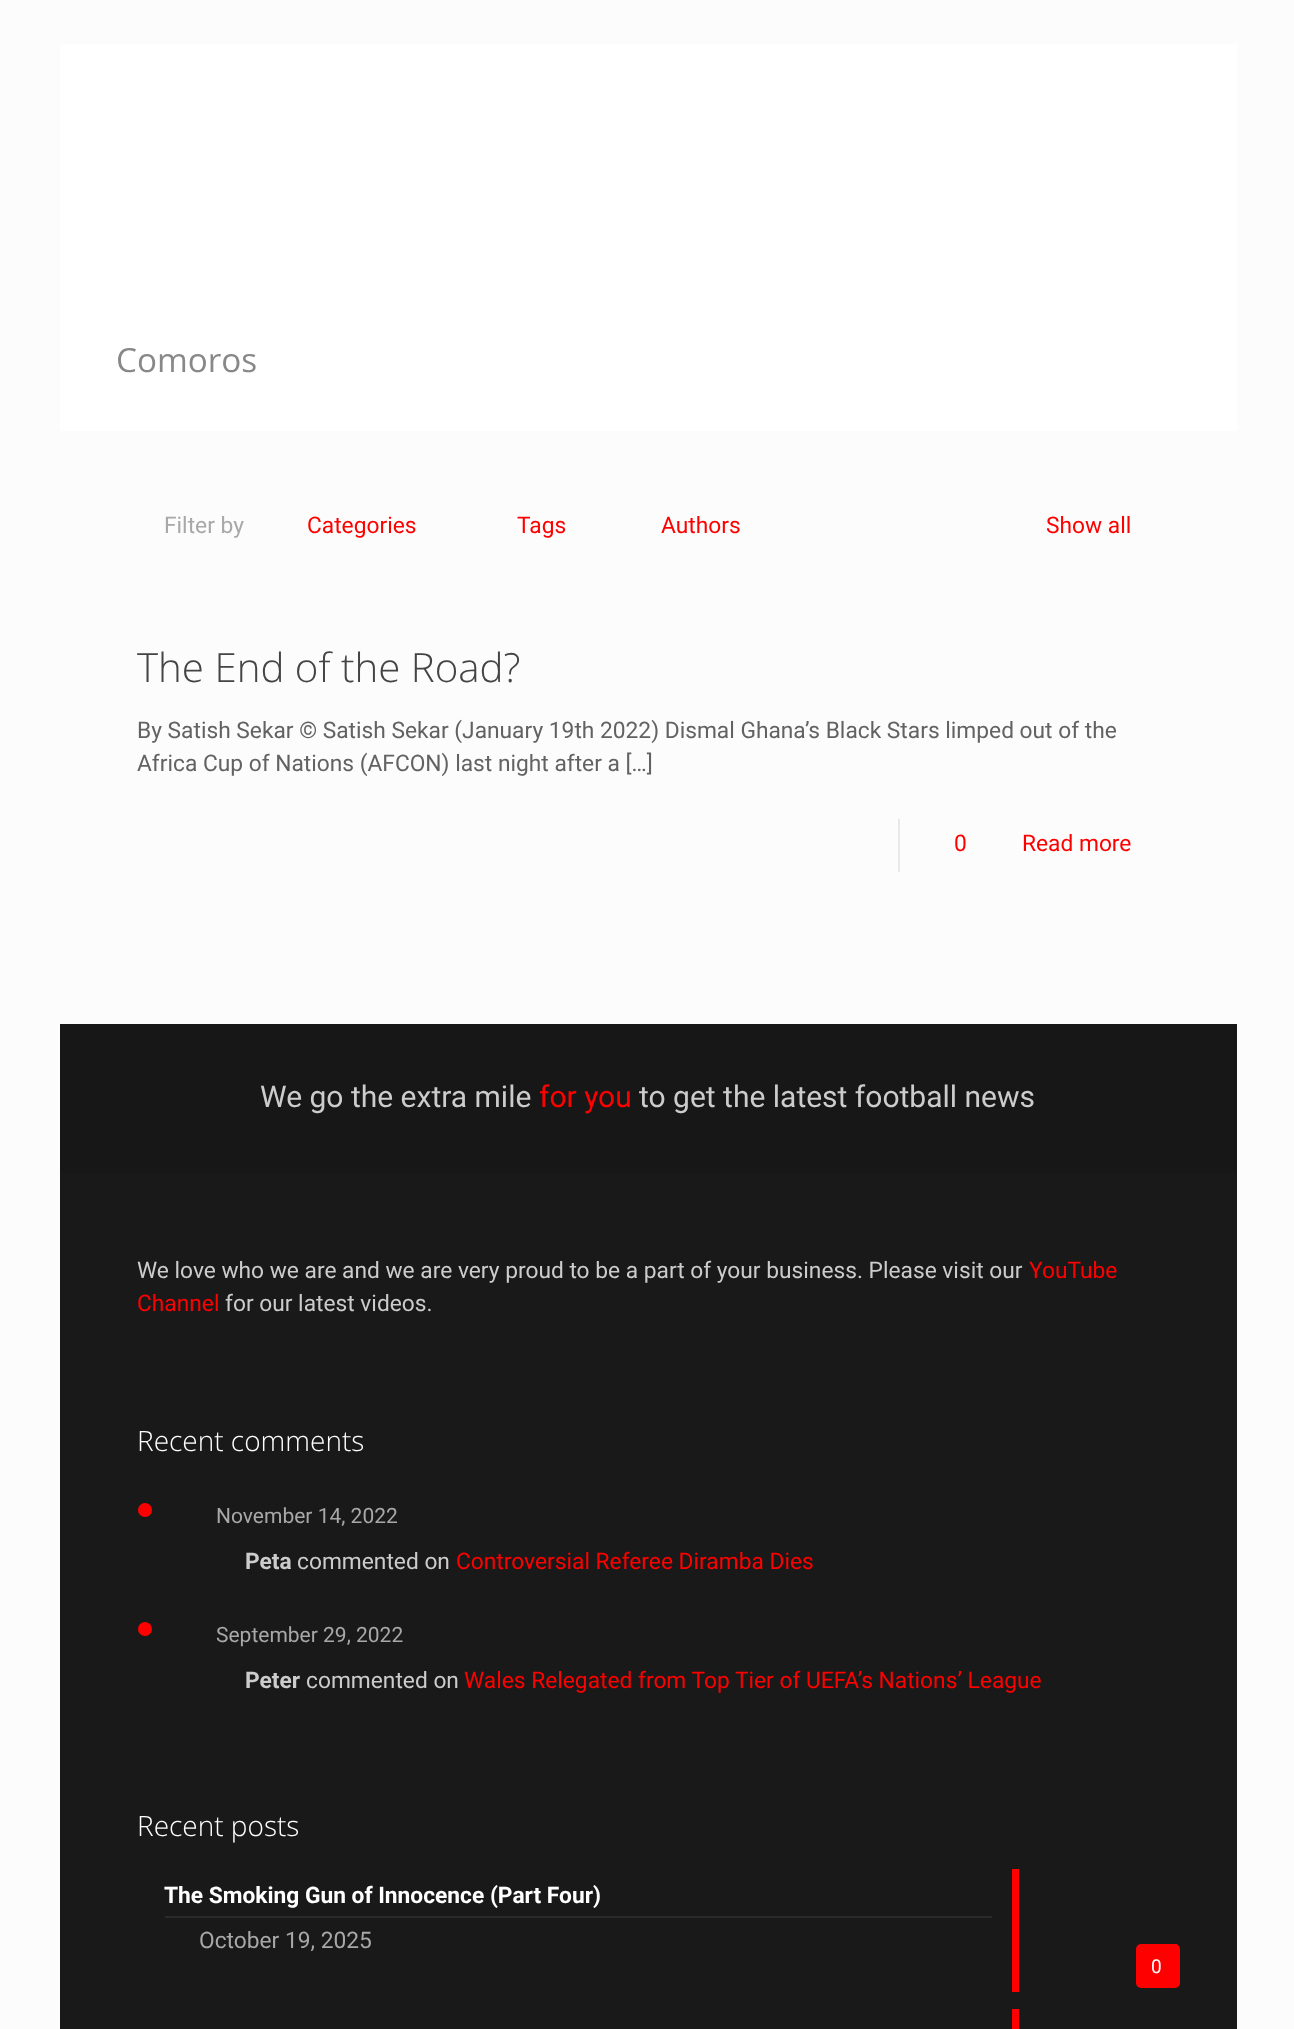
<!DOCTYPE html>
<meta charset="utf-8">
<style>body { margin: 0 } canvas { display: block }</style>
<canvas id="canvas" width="1294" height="2029"></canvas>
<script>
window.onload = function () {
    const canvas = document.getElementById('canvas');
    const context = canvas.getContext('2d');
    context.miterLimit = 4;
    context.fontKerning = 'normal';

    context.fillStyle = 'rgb(252, 252, 252)';
    context.fillRect(0, 0, 1294, 2029);
    context.fillStyle = 'rgb(255, 255, 255)';
    context.fillRect(60, 44, 1177, 387);
    context.fillStyle = 'rgb(232, 232, 232)';
    context.fillRect(898, 819, 2, 53);
    context.fillStyle = 'rgb(25, 25, 25)';
    context.fillRect(60, 1174, 1177, 855);
    context.fillStyle = 'rgb(23, 23, 23)';
    context.fillRect(60, 1024, 1177, 150);
    context.fillStyle = 'rgb(255, 0, 0)';
    context.beginPath();
    context.arc(145, 1510, 7, 0, 2 * Math.PI);
    context.fill();
    context.beginPath();
    context.arc(145, 1629, 7, 0, 2 * Math.PI);
    context.fill();
    context.fillStyle = 'rgb(42, 42, 42)';
    context.fillRect(165, 1916, 827, 2);
    context.fillStyle = 'rgb(255, 0, 0)';
    context.fillRect(1012, 1869, 7, 123);
    context.beginPath();
    context.roundRect(1136, 1944, 44, 44, 5);
    context.fill();
    context.fillRect(1012, 2009, 7, 20);
    context.font = '33.25px Open Sans';
    context.fillStyle = 'rgb(136, 136, 136)';
    context.fillText('Comoros', 116, 372);
    context.font = '22.75px Roboto';
    context.fillStyle = 'rgb(168, 168, 168)';
    context.fillText('Filter by', 164, 533);
    context.fillStyle = 'rgb(255, 0, 0)';
    context.fillText('Categories', 307, 533);
    context.fillText('Tags', 517, 533);
    context.fillText('Authors', 661, 533);
    context.fillText('Show all', 1046, 533);
    context.font = '300 40.25px Open Sans';
    context.fillStyle = 'rgb(68, 68, 68)';
    context.fillText('The End of the Road?', 137, 682);
    context.font = '22.75px Roboto';
    context.fillStyle = 'rgb(98, 98, 98)';
    context.fillText('By Satish Sekar © Satish Sekar (January 19th 2022) Dismal Ghana’s Black Stars limped out of the', 137, 738);
    context.fillText('Africa Cup of Nations (AFCON) last night after a […]', 137, 771);
    context.fillStyle = 'rgb(255, 0, 0)';
    context.fillText('0', 954, 851);
    context.fillText('Read more', 1022, 851);
    context.font = '30px Roboto';
    context.fillStyle = 'rgb(204, 204, 204)';
    context.fillText('We go the extra mile', 260, 1107);
    context.fillStyle = 'rgb(255, 0, 0)';
    context.fillText('for you', 539, 1107);
    context.fillStyle = 'rgb(204, 204, 204)';
    context.fillText('to get the latest football news', 639, 1107);
    context.font = '22.75px Roboto';
    context.fillText('We love who we are and we are very proud to be a part of your business. Please visit our', 137, 1278);
    context.fillStyle = 'rgb(255, 0, 0)';
    context.fillText('YouTube', 1029, 1278);
    context.fillText('Channel', 137, 1311);
    context.fillStyle = 'rgb(204, 204, 204)';
    context.fillText('for our latest videos.', 225, 1311);
    context.font = '300 28px Open Sans';
    context.fillStyle = 'rgb(255, 255, 255)';
    context.fillText('Recent comments', 137, 1451);
    context.font = '21px Roboto';
    context.fillStyle = 'rgb(168, 168, 168)';
    context.fillText('November 14, 2022', 216, 1523);
    context.font = 'bold 22.75px Roboto';
    context.fillStyle = 'rgb(204, 204, 204)';
    context.fillText('Peta', 245, 1569);
    context.font = '22.75px Roboto';
    context.fillText('commented on', 297, 1569);
    context.fillStyle = 'rgb(255, 0, 0)';
    context.fillText('Controversial Referee Diramba Dies', 456, 1569);
    context.font = '21px Roboto';
    context.fillStyle = 'rgb(168, 168, 168)';
    context.fillText('September 29, 2022', 216, 1642);
    context.font = 'bold 22.75px Roboto';
    context.fillStyle = 'rgb(204, 204, 204)';
    context.fillText('Peter', 245, 1688);
    context.font = '22.75px Roboto';
    context.fillText('commented on', 306, 1688);
    context.fillStyle = 'rgb(255, 0, 0)';
    context.fillText('Wales Relegated from Top Tier of UEFA’s Nations’ League', 464, 1688);
    context.font = '300 28px Open Sans';
    context.fillStyle = 'rgb(255, 255, 255)';
    context.fillText('Recent posts', 137, 1836);
    context.font = 'bold 22.75px Roboto';
    context.fillText('The Smoking Gun of Innocence (Part Four)', 164, 1903);
    context.font = '22.75px Roboto';
    context.fillStyle = 'rgb(168, 168, 168)';
    context.fillText('October 19, 2025', 199, 1948);
    context.font = '19px Roboto';
    context.fillStyle = 'rgb(255, 255, 255)';
    context.fillText('0', 1151, 1973);
};
</script>
